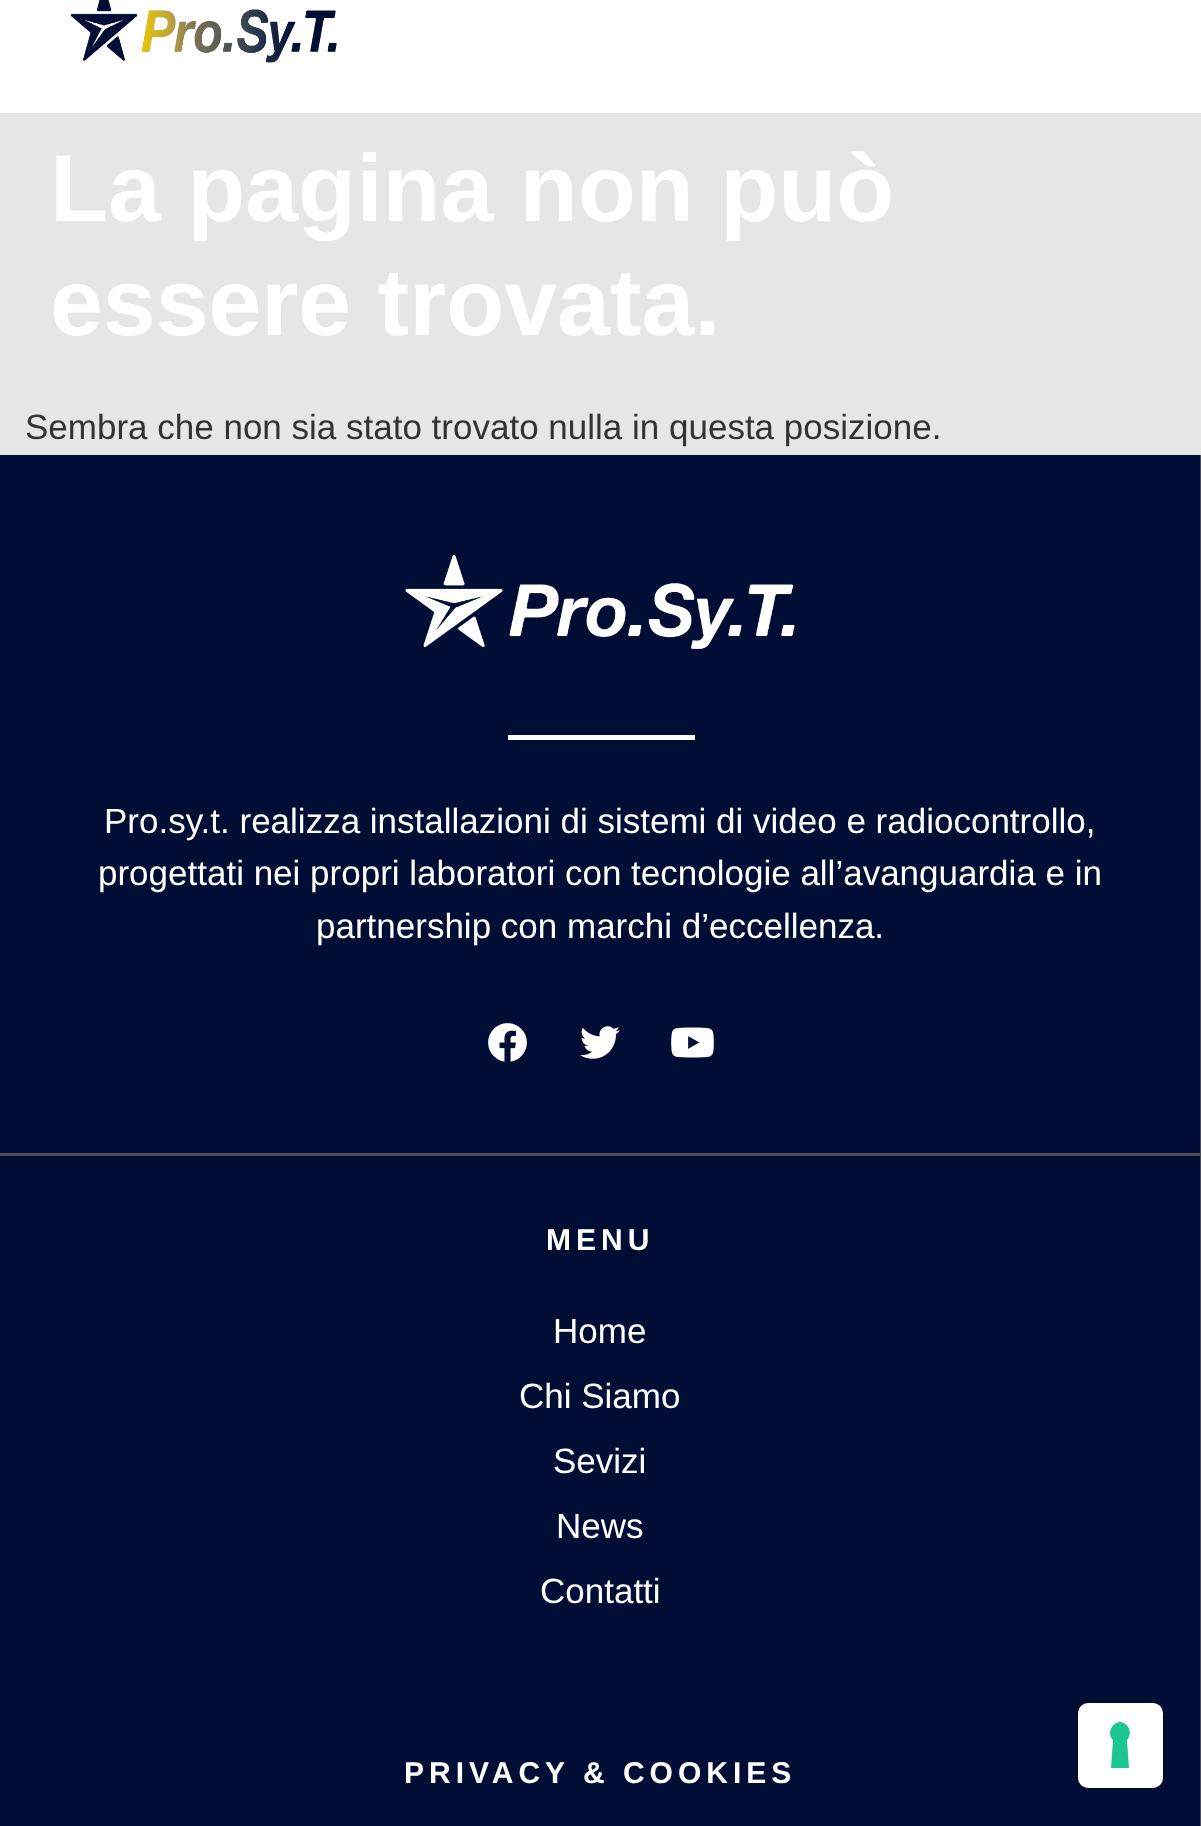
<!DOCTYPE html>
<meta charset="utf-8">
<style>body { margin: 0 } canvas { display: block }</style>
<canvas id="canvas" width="1201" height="1826"></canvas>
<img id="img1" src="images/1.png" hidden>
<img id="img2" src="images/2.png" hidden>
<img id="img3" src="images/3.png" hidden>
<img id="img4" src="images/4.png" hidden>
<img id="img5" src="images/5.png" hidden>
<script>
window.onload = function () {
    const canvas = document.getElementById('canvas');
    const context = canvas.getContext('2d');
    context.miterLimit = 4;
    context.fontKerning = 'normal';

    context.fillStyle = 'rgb(230, 230, 230)';
    context.fillRect(0, 0, 1201, 1826);
    context.fillStyle = 'rgb(255, 255, 255)';
    context.fillRect(0, 0, 1201, 113);
    context.drawImage(document.getElementById('img1'), 70, 0, 267, 63);
    context.fillStyle = 'rgb(0, 14, 53)';
    context.fillRect(0, 455, 1200, 1371);
    context.fillStyle = 'rgb(79, 79, 79)';
    context.fillRect(1200, 455, 1, 1371);
    context.fillRect(0, 1153, 1200, 3);
    context.drawImage(document.getElementById('img2'), 405, 555, 390, 94);
    context.fillStyle = 'rgb(255, 255, 255)';
    context.fillRect(508, 735, 187, 5);
    context.drawImage(document.getElementById('img3'), 488, 1023, 39, 39);
    context.drawImage(document.getElementById('img4'), 580, 1026, 40, 33);
    context.drawImage(document.getElementById('img5'), 671, 1027, 43, 31);
    context.beginPath();
    context.roundRect(1076.5, 1701.5, 87, 87, 11.5);
    context.strokeStyle = 'rgb(0, 12, 45)';
    context.lineWidth = 3;
    context.stroke();
    context.beginPath();
    context.roundRect(1078, 1703, 85, 85, 10);
    context.fill();
    context.fillStyle = 'rgb(28, 198, 145)';
    context.beginPath();
    context.moveTo(1120, 1722);
    context.bezierCurveTo(1129, 1723, 1133, 1734, 1127, 1740);
    context.lineTo(1129, 1768);
    context.lineTo(1111, 1768);
    context.lineTo(1113, 1740);
    context.bezierCurveTo(1107, 1734, 1111, 1723, 1120, 1722);
    context.closePath();
    context.fill('evenodd');
    context.font = 'bold 95px Liberation Sans';
    context.fillStyle = 'rgb(255, 255, 255)';
    context.fillText('La pagina non può', 50, 221);
    context.fillText('essere trovata.', 50, 335);
    context.font = '35px Liberation Sans';
    context.fillStyle = 'rgb(51, 51, 51)';
    context.fillText('Sembra che non sia stato trovato nulla in questa posizione.', 25, 439);
    context.fillStyle = 'rgb(255, 255, 255)';
    context.fillText('Pro.sy.t. realizza installazioni di sistemi di video e radiocontrollo,', 104, 833);
    context.fillText('progettati nei propri laboratori con tecnologie all’avanguardia e in', 98, 885);
    context.fillText('partnership con marchi d’eccellenza.', 316, 938);
    context.letterSpacing = '5px';
    context.font = 'bold 30px Liberation Sans';
    context.fillText('MENU', 546, 1250);
    context.letterSpacing = '0px';
    context.font = '35px Liberation Sans';
    context.fillText('Home', 553, 1343);
    context.fillText('Chi Siamo', 519, 1408);
    context.fillText('Sevizi', 553, 1473);
    context.fillText('News', 556, 1538);
    context.fillText('Contatti', 540, 1603);
    context.letterSpacing = '5px';
    context.font = 'bold 30px Liberation Sans';
    context.fillText('PRIVACY & COOKIES', 404, 1783);
};
</script>
